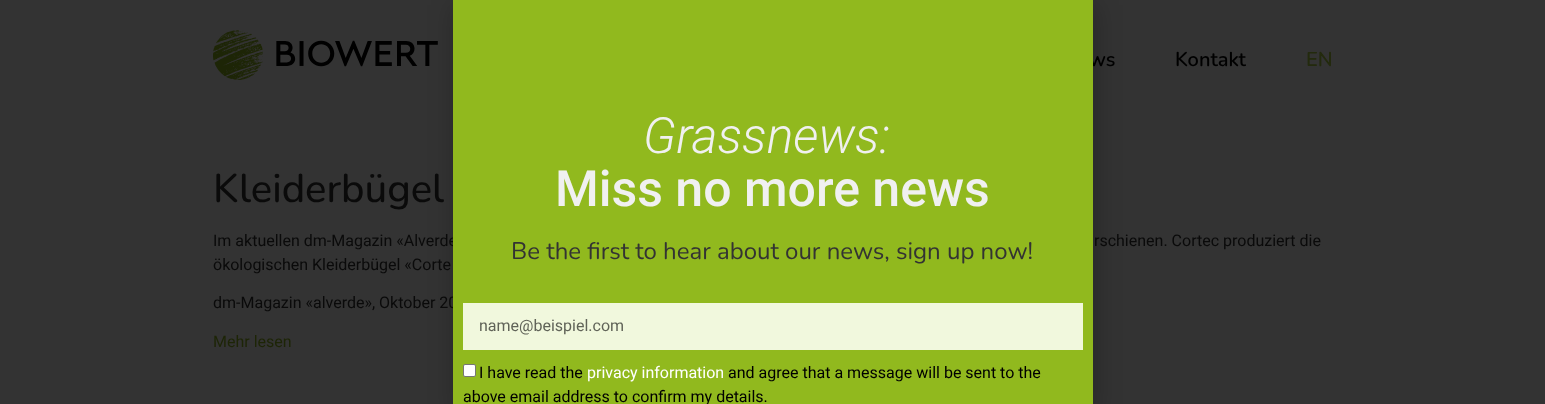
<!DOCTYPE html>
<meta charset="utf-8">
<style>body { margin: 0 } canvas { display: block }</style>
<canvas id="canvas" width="1545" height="404"></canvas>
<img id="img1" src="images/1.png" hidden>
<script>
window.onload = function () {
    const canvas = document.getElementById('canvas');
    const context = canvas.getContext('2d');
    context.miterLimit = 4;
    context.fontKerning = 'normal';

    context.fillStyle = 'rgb(51, 51, 51)';
    context.fillRect(0, 0, 1545, 404);
    context.drawImage(document.getElementById('img1'), 213, 30, 225, 50);
    context.fillStyle = 'rgba(0, 0, 0, 0.2)';
    context.filter = 'blur(11.5px)';
    context.beginPath();
    context.rect(452, 5, 646, 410);
    context.fill();
    context.filter = 'none';
    context.font = '600 20px Nunito';
    context.fillStyle = 'rgb(0, 0, 0)';
    context.fillText('ws', 1089, 66);
    context.fillText('Kontakt', 1175, 66);
    context.fillStyle = 'rgb(35, 42, 13)';
    context.fillText('EN', 1306, 66);
    context.font = '500 40px Nunito';
    context.fillStyle = 'rgb(10, 10, 10)';
    context.fillText('Kleiderbügel', 213, 202);
    context.font = '16px Roboto';
    context.fillText('Im aktuellen dm-Magazin «Alverde', 213, 246);
    context.fillText('rschienen. Cortec produziert die', 1094, 246);
    context.fillText('ökologischen Kleiderbügel «Corte', 213, 270);
    context.fillText('dm-Magazin «alverde», Oktober 20', 213, 308);
    context.fillStyle = 'rgb(145, 185, 30)';
    context.fillRect(453, 0, 640, 404);
    context.fillStyle = 'rgb(0, 0, 0)';
    context.fillText('above email address to confirm my details.', 463, 402);
    context.fillText('and agree that a message will be sent to the', 728, 378);
    context.fillStyle = 'rgb(255, 255, 255)';
    context.fillText('privacy information', 587, 378);
    context.fillStyle = 'rgb(0, 0, 0)';
    context.fillText('I have read the', 479, 378);
    context.fillStyle = 'rgb(255, 255, 255)';
    context.beginPath();
    context.roundRect(463.5, 364.5, 12, 12, 1.5);
    context.fill();
    context.strokeStyle = 'rgb(118, 118, 118)';
    context.stroke();
    context.fillStyle = 'rgb(241, 248, 221)';
    context.fillRect(463, 303, 620, 47);
    context.fillStyle = 'rgb(96, 99, 88)';
    context.fillText('name@beispiel.com', 479, 331);
    context.font = '24px Nunito';
    context.fillStyle = 'rgb(51, 51, 51)';
    context.fillText('Be the first to hear about our news, sign up now!', 511, 259);
    context.font = '500 50px Roboto';
    context.fillStyle = 'rgb(240, 240, 240)';
    context.fillText('Miss no more news', 555, 206);
    context.font = 'italic 300 50px Roboto';
    context.fillText('Grassnews:', 643, 153);
    context.font = '16px Roboto';
    context.fillStyle = 'rgb(29, 37, 6)';
    context.fillText('Mehr lesen', 213, 347);
};
</script>
